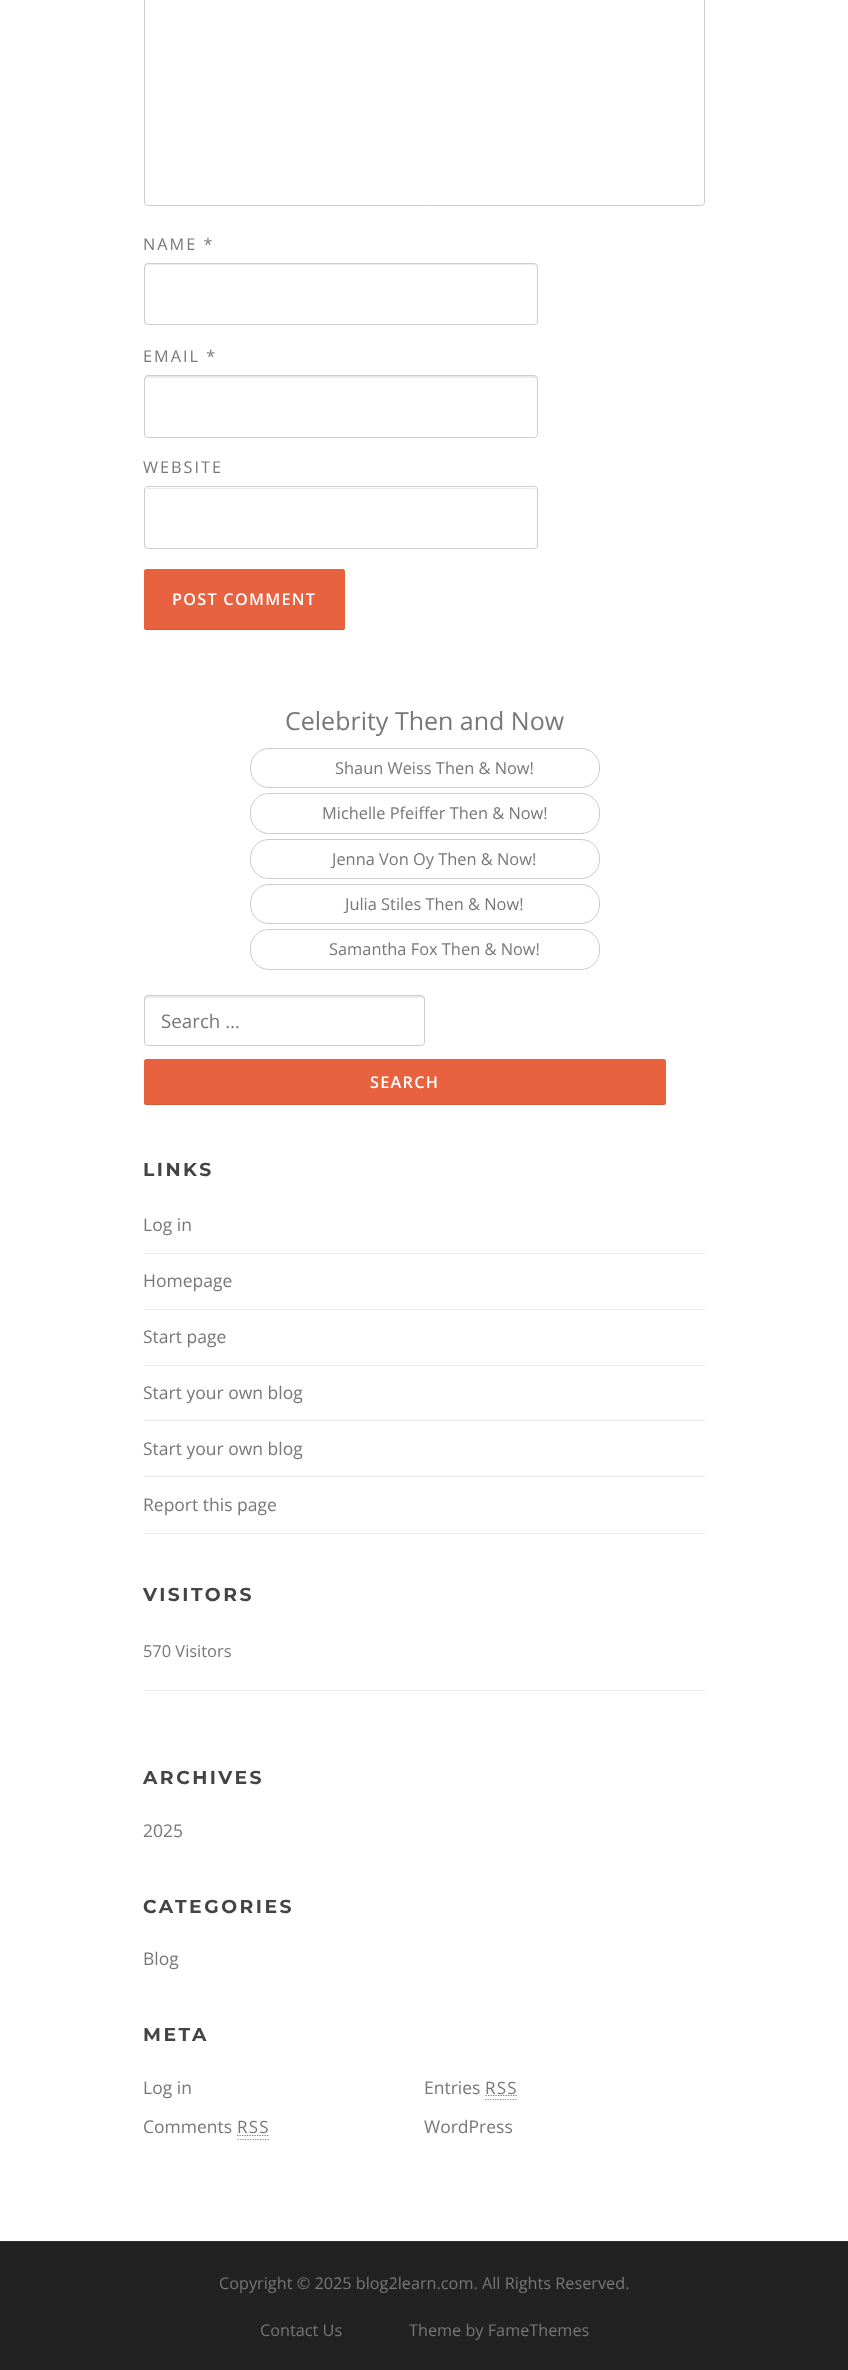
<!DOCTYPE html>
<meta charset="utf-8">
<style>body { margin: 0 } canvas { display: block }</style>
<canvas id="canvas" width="848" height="2370"></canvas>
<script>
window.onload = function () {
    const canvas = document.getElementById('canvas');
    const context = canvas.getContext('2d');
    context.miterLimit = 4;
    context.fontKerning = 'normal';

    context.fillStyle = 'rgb(255, 255, 255)';
    context.fillRect(0, 0, 848, 2370);
    context.beginPath();
    context.roundRect(144.5, -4.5, 560, 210, 3.5);
    context.strokeStyle = 'rgb(204, 204, 204)';
    context.stroke();
    context.fillStyle = 'rgb(235, 235, 235)';
    context.beginPath();
    context.moveTo(148, 265);
    context.lineTo(534, 265);
    context.bezierCurveTo(535, 265, 536, 266, 536, 268);
    context.lineTo(536, 265);
    context.lineTo(534, 264);
    context.lineTo(148, 264);
    context.bezierCurveTo(145, 264, 145, 266, 145, 268);
    context.bezierCurveTo(145, 266, 146, 265, 148, 265);
    context.closePath();
    context.fill();
    context.beginPath();
    context.roundRect(144.5, 263.5, 393, 61, 3.5);
    context.stroke();
    context.beginPath();
    context.moveTo(148, 378);
    context.lineTo(534, 378);
    context.bezierCurveTo(535, 378, 536, 379, 536, 380);
    context.lineTo(536, 377);
    context.lineTo(534, 376);
    context.lineTo(148, 376);
    context.bezierCurveTo(145, 376, 145, 378, 145, 380);
    context.bezierCurveTo(145, 379, 146, 378, 148, 378);
    context.closePath();
    context.fill();
    context.beginPath();
    context.roundRect(144.5, 375.5, 393, 62, 3.5);
    context.stroke();
    context.beginPath();
    context.moveTo(148, 489);
    context.lineTo(534, 489);
    context.bezierCurveTo(535, 489, 536, 490, 536, 491);
    context.bezierCurveTo(536, 489, 535, 488, 534, 488);
    context.lineTo(148, 488);
    context.lineTo(146, 489);
    context.lineTo(145, 491);
    context.bezierCurveTo(145, 490, 146, 489, 148, 489);
    context.closePath();
    context.fill();
    context.beginPath();
    context.roundRect(144.5, 486.5, 393, 62, 3.5);
    context.stroke();
    context.fillStyle = 'rgb(232, 98, 64)';
    context.beginPath();
    context.roundRect(144, 569, 201, 61, 2.5);
    context.fill();
    context.fillStyle = 'rgba(0, 0, 0, 0.1)';
    context.beginPath();
    context.moveTo(144, 626);
    context.lineTo(144, 628);
    context.bezierCurveTo(144, 629, 145, 630, 146, 630);
    context.lineTo(342, 630);
    context.bezierCurveTo(344, 630, 345, 629, 345, 628);
    context.lineTo(345, 626);
    context.bezierCurveTo(345, 628, 344, 629, 342, 629);
    context.lineTo(146, 629);
    context.bezierCurveTo(145, 629, 144, 628, 144, 626);
    context.closePath();
    context.fill();
    context.beginPath();
    context.roundRect(250.5, 748.5, 349, 39, 18.5);
    context.stroke();
    context.beginPath();
    context.roundRect(250.5, 793.5, 349, 40, 18.5);
    context.stroke();
    context.beginPath();
    context.roundRect(250.5, 839.5, 349, 39, 18.5);
    context.stroke();
    context.beginPath();
    context.roundRect(250.5, 884.5, 349, 39, 18.5);
    context.stroke();
    context.beginPath();
    context.roundRect(250.5, 929.5, 349, 40, 18.5);
    context.stroke();
    context.fillStyle = 'rgb(235, 235, 235)';
    context.beginPath();
    context.moveTo(148, 998);
    context.lineTo(421, 998);
    context.bezierCurveTo(423, 998, 424, 999, 424, 1000);
    context.lineTo(424, 998);
    context.bezierCurveTo(424, 997, 423, 996, 422, 996);
    context.lineTo(148, 996);
    context.bezierCurveTo(146, 996, 145, 997, 145, 998);
    context.lineTo(145, 1000);
    context.bezierCurveTo(145, 999, 146, 998, 148, 998);
    context.closePath();
    context.fill();
    context.beginPath();
    context.roundRect(144.5, 995.5, 280, 50, 3.5);
    context.stroke();
    context.fillStyle = 'rgb(232, 98, 64)';
    context.beginPath();
    context.roundRect(144, 1059, 522, 46, 2.5);
    context.fill();
    context.fillStyle = 'rgba(0, 0, 0, 0.1)';
    context.beginPath();
    context.moveTo(144, 1101);
    context.bezierCurveTo(144, 1103, 144, 1105, 146, 1105);
    context.lineTo(664, 1105);
    context.bezierCurveTo(666, 1105, 666, 1103, 666, 1101);
    context.bezierCurveTo(666, 1103, 665, 1104, 664, 1104);
    context.lineTo(146, 1104);
    context.bezierCurveTo(145, 1104, 144, 1103, 144, 1101);
    context.closePath();
    context.fill();
    context.fillStyle = 'rgb(233, 233, 233)';
    context.fillRect(144, 1253, 561, 1);
    context.fillRect(144, 1309, 561, 1);
    context.fillRect(144, 1365, 561, 1);
    context.fillRect(144, 1420, 561, 1);
    context.fillRect(144, 1476, 561, 1);
    context.fillRect(144, 1533, 561, 1);
    context.fillRect(144, 1690, 561, 1);
    context.beginPath();
    context.moveTo(485, 2099.5);
    context.lineTo(517.5, 2099.5);
    context.strokeStyle = 'rgb(129, 138, 145)';
    context.lineWidth = 1.2;
    context.setLineDash([1.25, 1.25]);
    context.stroke();
    context.beginPath();
    context.moveTo(485.5, 2095.5);
    context.lineTo(517.5, 2095.5);
    context.strokeStyle = 'rgb(119, 119, 119)';
    context.stroke();
    context.beginPath();
    context.moveTo(237.5, 2139.5);
    context.lineTo(269, 2139.5);
    context.strokeStyle = 'rgb(129, 138, 145)';
    context.stroke();
    context.beginPath();
    context.moveTo(237, 2135.5);
    context.lineTo(269, 2135.5);
    context.strokeStyle = 'rgb(119, 119, 119)';
    context.stroke();
    context.fillStyle = 'rgb(34, 34, 34)';
    context.fillRect(0, 2242, 848, 128);
    context.fillStyle = 'rgb(51, 51, 51)';
    context.fillRect(0, 2241, 848, 1);
    context.letterSpacing = '2px';
    context.font = '16.25px Open Sans';
    context.fillStyle = 'rgb(119, 119, 119)';
    context.fillText('NAME *', 143, 250);
    context.fillText('EMAIL *', 143, 362);
    context.fillText('WEBSITE', 143, 473);
    context.letterSpacing = '1.25px';
    context.font = '600 16.25px Open Sans';
    context.fillStyle = 'rgb(255, 255, 255)';
    context.fillText('POST COMMENT', 172, 605);
    context.letterSpacing = '0px';
    context.font = '25px Open Sans';
    context.fillStyle = 'rgb(119, 119, 119)';
    context.fillText('Celebrity Then and Now', 285, 730);
    context.font = '16.4px Open Sans';
    context.fillText('Shaun Weiss Then & Now!', 335, 774);
    context.fillText('Michelle Pfeiffer Then & Now!', 322, 819);
    context.fillText('Jenna Von Oy Then & Now!', 332, 865);
    context.fillText('Julia Stiles Then & Now!', 345, 910);
    context.fillText('Samantha Fox Then & Now!', 329, 955);
    context.font = '18.75px Open Sans';
    context.fillText('Search …', 161, 1028);
    context.letterSpacing = '1.25px';
    context.font = '600 16.25px Open Sans';
    context.fillStyle = 'rgb(255, 255, 255)';
    context.fillText('SEARCH', 370, 1088);
    context.letterSpacing = '2.5px';
    context.font = 'bold 18.75px Montserrat';
    context.fillStyle = 'rgb(68, 68, 68)';
    context.fillText('LINKS', 143, 1176);
    context.letterSpacing = '0px';
    context.font = '17.5px Open Sans';
    context.fillStyle = 'rgb(119, 119, 119)';
    context.fillText('Log in', 143, 1231);
    context.fillText('Homepage', 143, 1287);
    context.fillText('Start page', 143, 1343);
    context.fillText('Start your own blog', 143, 1399);
    context.fillText('Start your own blog', 143, 1455);
    context.fillText('Report this page', 143, 1511);
    context.letterSpacing = '2.5px';
    context.font = 'bold 18.75px Montserrat';
    context.fillStyle = 'rgb(68, 68, 68)';
    context.fillText('VISITORS', 143, 1601);
    context.letterSpacing = '0px';
    context.font = '16.4px Open Sans';
    context.fillStyle = 'rgb(119, 119, 119)';
    context.fillText('570 Visitors', 143, 1657);
    context.letterSpacing = '2.5px';
    context.font = 'bold 18.75px Montserrat';
    context.fillStyle = 'rgb(68, 68, 68)';
    context.fillText('ARCHIVES', 143, 1784);
    context.letterSpacing = '0px';
    context.font = '17.5px Open Sans';
    context.fillStyle = 'rgb(119, 119, 119)';
    context.fillText('2025', 143, 1837);
    context.letterSpacing = '2.5px';
    context.font = 'bold 18.75px Montserrat';
    context.fillStyle = 'rgb(68, 68, 68)';
    context.fillText('CATEGORIES', 143, 1913);
    context.letterSpacing = '0px';
    context.font = '17.5px Open Sans';
    context.fillStyle = 'rgb(119, 119, 119)';
    context.fillText('Blog', 143, 1965);
    context.letterSpacing = '2.5px';
    context.font = 'bold 18.75px Montserrat';
    context.fillStyle = 'rgb(68, 68, 68)';
    context.fillText('META', 143, 2041);
    context.letterSpacing = '0px';
    context.font = '17.5px Open Sans';
    context.fillStyle = 'rgb(119, 119, 119)';
    context.fillText('Log in', 143, 2094);
    context.fillText('Entries', 424, 2094);
    context.letterSpacing = '1.25px';
    context.font = '17px Open Sans';
    context.fillText('RSS', 485, 2094);
    context.letterSpacing = '0px';
    context.font = '17.5px Open Sans';
    context.fillText('Comments', 143, 2133);
    context.letterSpacing = '1.25px';
    context.font = '17px Open Sans';
    context.fillText('RSS', 237, 2133);
    context.letterSpacing = '0px';
    context.font = '17.5px Open Sans';
    context.fillText('WordPress', 424, 2133);
    context.font = '16.25px Open Sans';
    context.fillText('Copyright © 2025 blog2learn.com. All Rights Reserved.', 219, 2289);
    context.fillText('Contact Us', 260, 2336);
    context.fillText('Theme by FameThemes', 409, 2336);
};
</script>
